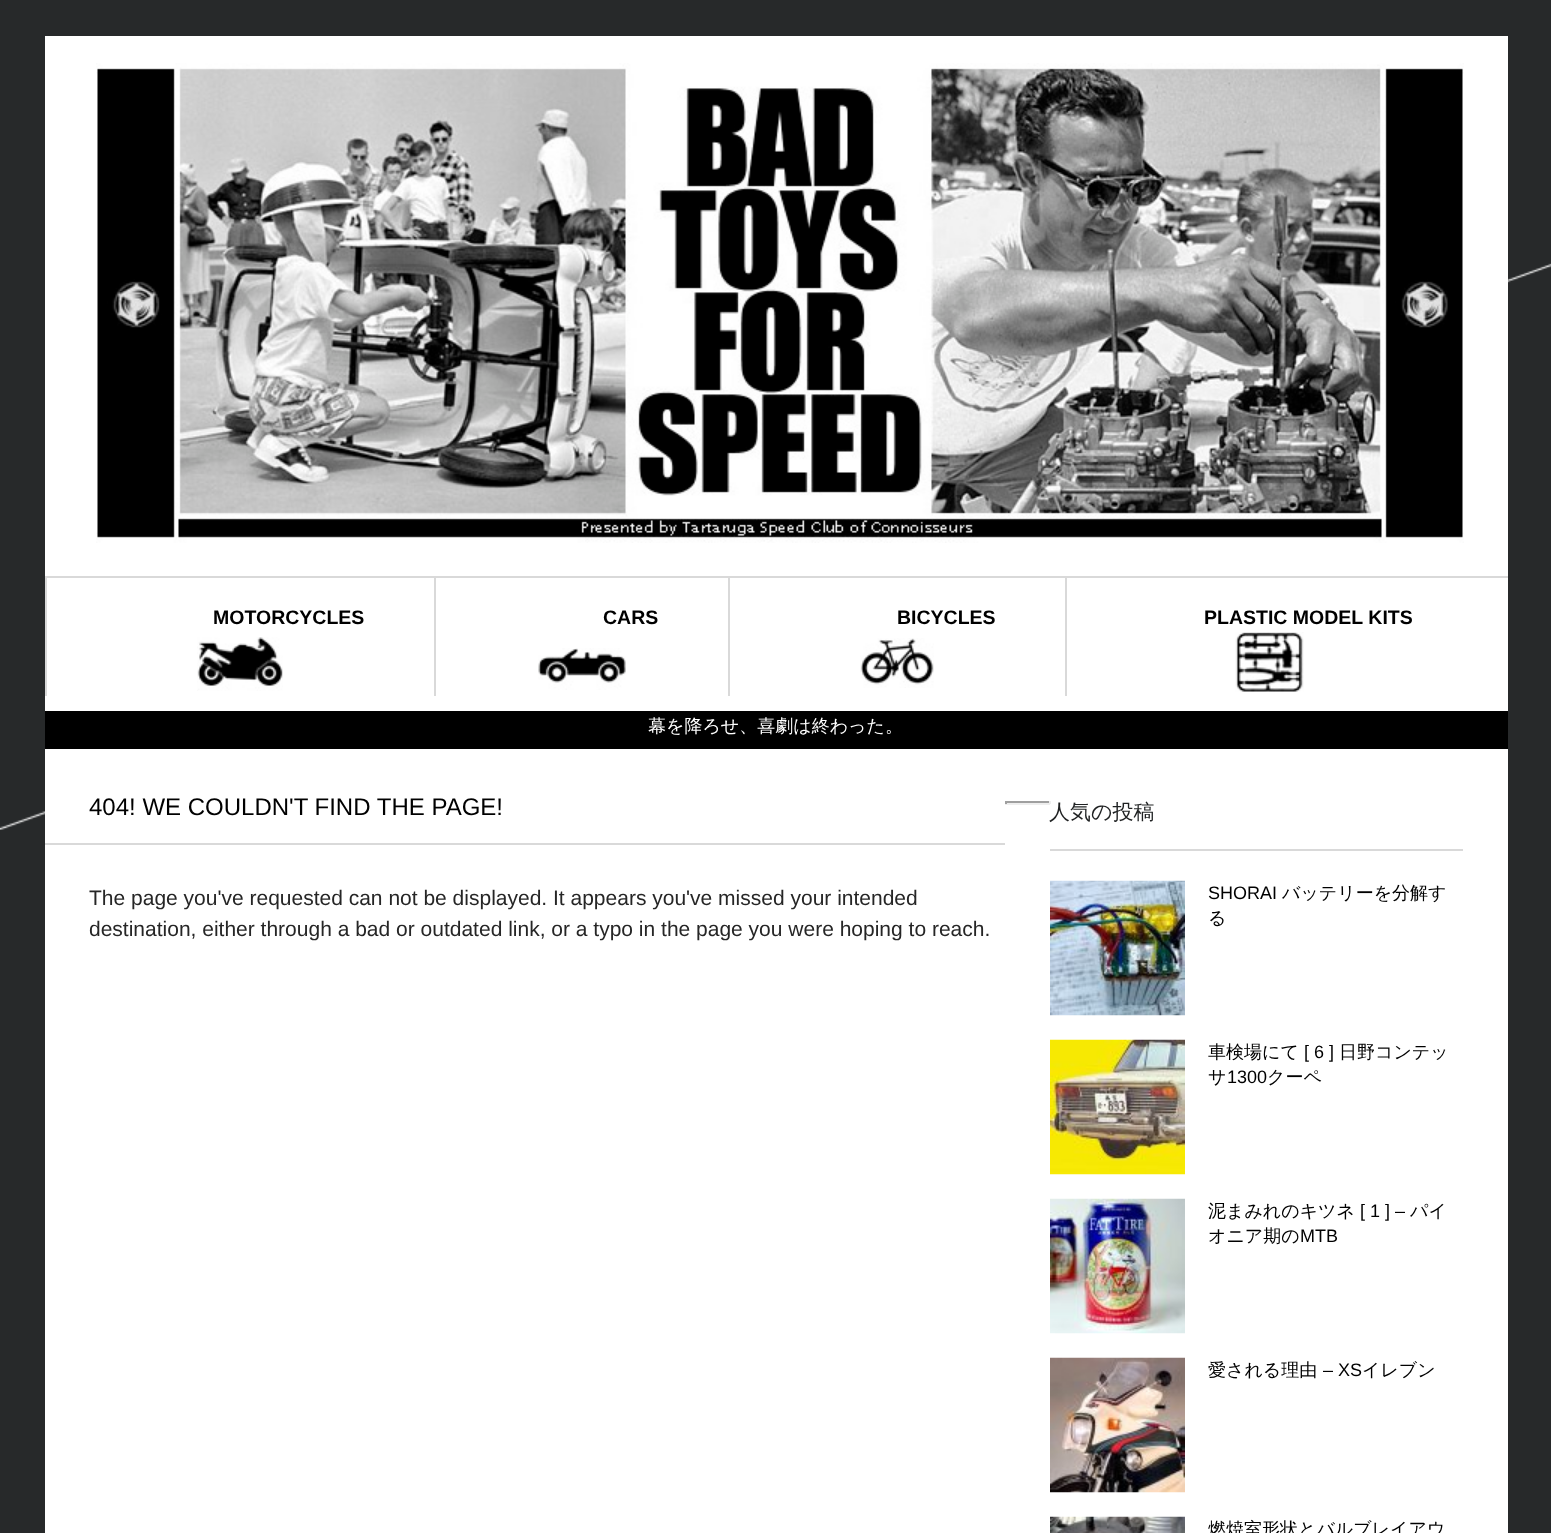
<!DOCTYPE html>
<meta charset="utf-8">
<style>body { margin: 0 } canvas { display: block }</style>
<canvas id="canvas" width="1551" height="1533"></canvas>
<img id="img1" src="images/1.png" hidden>
<img id="img2" src="images/2.png" hidden>
<img id="img3" src="images/3.png" hidden>
<img id="img4" src="images/4.png" hidden>
<img id="img5" src="images/5.png" hidden>
<img id="img6" src="images/6.png" hidden>
<img id="img7" src="images/7.png" hidden>
<img id="img8" src="images/8.png" hidden>
<img id="img9" src="images/9.png" hidden>
<img id="img10" src="images/10.png" hidden>
<img id="img11" src="images/11.png" hidden>
<script>
window.onload = function () {
    const canvas = document.getElementById('canvas');
    const context = canvas.getContext('2d');
    context.miterLimit = 4;
    context.fontKerning = 'normal';

    context.fillStyle = 'rgb(39, 41, 42)';
    context.fillRect(0, 0, 1551, 1533);
    context.drawImage(document.getElementById('img1'), 0, 263, 1551, 567);
    context.fillStyle = 'rgb(255, 255, 255)';
    context.fillRect(45, 36, 1463, 1497);
    context.drawImage(document.getElementById('img2'), 96, 63, 1368, 480);
    context.fillStyle = 'rgb(217, 217, 217)';
    context.fillRect(45, 576, 1463, 2);
    context.fillRect(45, 578, 2, 118);
    context.drawImage(document.getElementById('img3'), 197, 637, 86, 54);
    context.fillRect(434, 578, 2, 118);
    context.drawImage(document.getElementById('img4'), 538, 648, 88, 42);
    context.fillRect(728, 578, 2, 118);
    context.drawImage(document.getElementById('img5'), 860, 638, 74, 50);
    context.fillRect(1065, 578, 2, 118);
    context.drawImage(document.getElementById('img6'), 1235, 632, 69, 60);
    context.fillStyle = 'rgb(0, 0, 0)';
    context.fillRect(45, 711, 1463, 38);
    context.fillStyle = 'rgb(217, 217, 217)';
    context.fillRect(45, 843, 960, 2);
    context.fillRect(1050, 849, 413, 2);
    context.drawImage(document.getElementById('img7'), 1050, 880, 135, 136);
    context.drawImage(document.getElementById('img8'), 1050, 1039, 135, 136);
    context.drawImage(document.getElementById('img9'), 1050, 1198, 135, 136);
    context.drawImage(document.getElementById('img10'), 1050, 1357, 135, 136);
    context.drawImage(document.getElementById('img11'), 1050, 1516, 135, 17);
    context.font = 'bold 19.5px Liberation Sans';
    context.fillStyle = 'rgb(0, 0, 0)';
    context.fillText('MOTORCYCLES', 213, 624);
    context.fillText('CARS', 603, 624);
    context.fillText('BICYCLES', 897, 624);
    context.fillText('PLASTIC MODEL KITS', 1204, 624);
    context.font = '500 18px WenQuanYi Zen Hei';
    context.fillStyle = 'rgb(255, 255, 255)';
    context.fillText('幕を降ろせ、喜劇は終わった。', 648, 732);
    context.font = '24px Liberation Sans';
    context.fillStyle = 'rgb(0, 0, 0)';
    context.fillText('404! WE COULDN\'T FIND THE PAGE!', 89, 815);
    context.font = '21px Liberation Sans';
    context.fillStyle = 'rgb(38, 38, 38)';
    context.fillText('The page you\'ve requested can not be displayed. It appears you\'ve missed your intended', 89, 905);
    context.fillText('destination, either through a bad or outdated link, or a typo in the page you were hoping to reach.', 89, 936);
    context.font = '500 21px WenQuanYi Zen Hei';
    context.fillStyle = 'rgb(31, 33, 34)';
    context.fillText('人気の投稿', 1049, 819);
    context.fillStyle = 'rgb(159, 159, 159)';
    context.fillRect(1005, 801, 45, 2);
    context.fillStyle = 'rgb(238, 238, 238)';
    context.fillRect(1049, 801, 2, 3);
    context.fillRect(1005, 803, 45, 2);
    context.fillStyle = 'rgb(159, 159, 159)';
    context.fillRect(1005, 801, 2, 3);
    context.font = '18px Liberation Sans';
    context.fillStyle = 'rgb(0, 0, 0)';
    context.fillText('SHORAI', 1208, 899);
    context.font = '500 18px WenQuanYi Zen Hei';
    context.fillText('バッテリーを分解す', 1282, 899);
    context.fillText('る', 1208, 924);
    context.fillText('車検場にて', 1208, 1058);
    context.font = '18px Liberation Sans';
    context.fillText('[ 6 ]', 1304, 1058);
    context.font = '500 18px WenQuanYi Zen Hei';
    context.fillText('日野コンテッ', 1339, 1058);
    context.fillText('サ', 1208, 1083);
    context.font = '18px Liberation Sans';
    context.fillText('1300', 1227, 1083);
    context.font = '500 18px WenQuanYi Zen Hei';
    context.fillText('クーペ', 1267, 1083);
    context.fillText('泥まみれのキツネ', 1208, 1217);
    context.font = '18px Liberation Sans';
    context.fillText('[ 1 ] –', 1360, 1217);
    context.font = '500 18px WenQuanYi Zen Hei';
    context.fillText('パイ', 1410, 1217);
    context.fillText('オニア期の', 1208, 1242);
    context.font = '18px Liberation Sans';
    context.fillText('MTB', 1300, 1242);
    context.font = '500 18px WenQuanYi Zen Hei';
    context.fillText('愛される理由', 1208, 1376);
    context.font = '18px Liberation Sans';
    context.fillText('– XS', 1323, 1376);
    context.font = '500 18px WenQuanYi Zen Hei';
    context.fillText('イレブン', 1362, 1376);
    context.fillText('燃焼室形状とバルブレイアウ', 1208, 1535);
};
</script>
